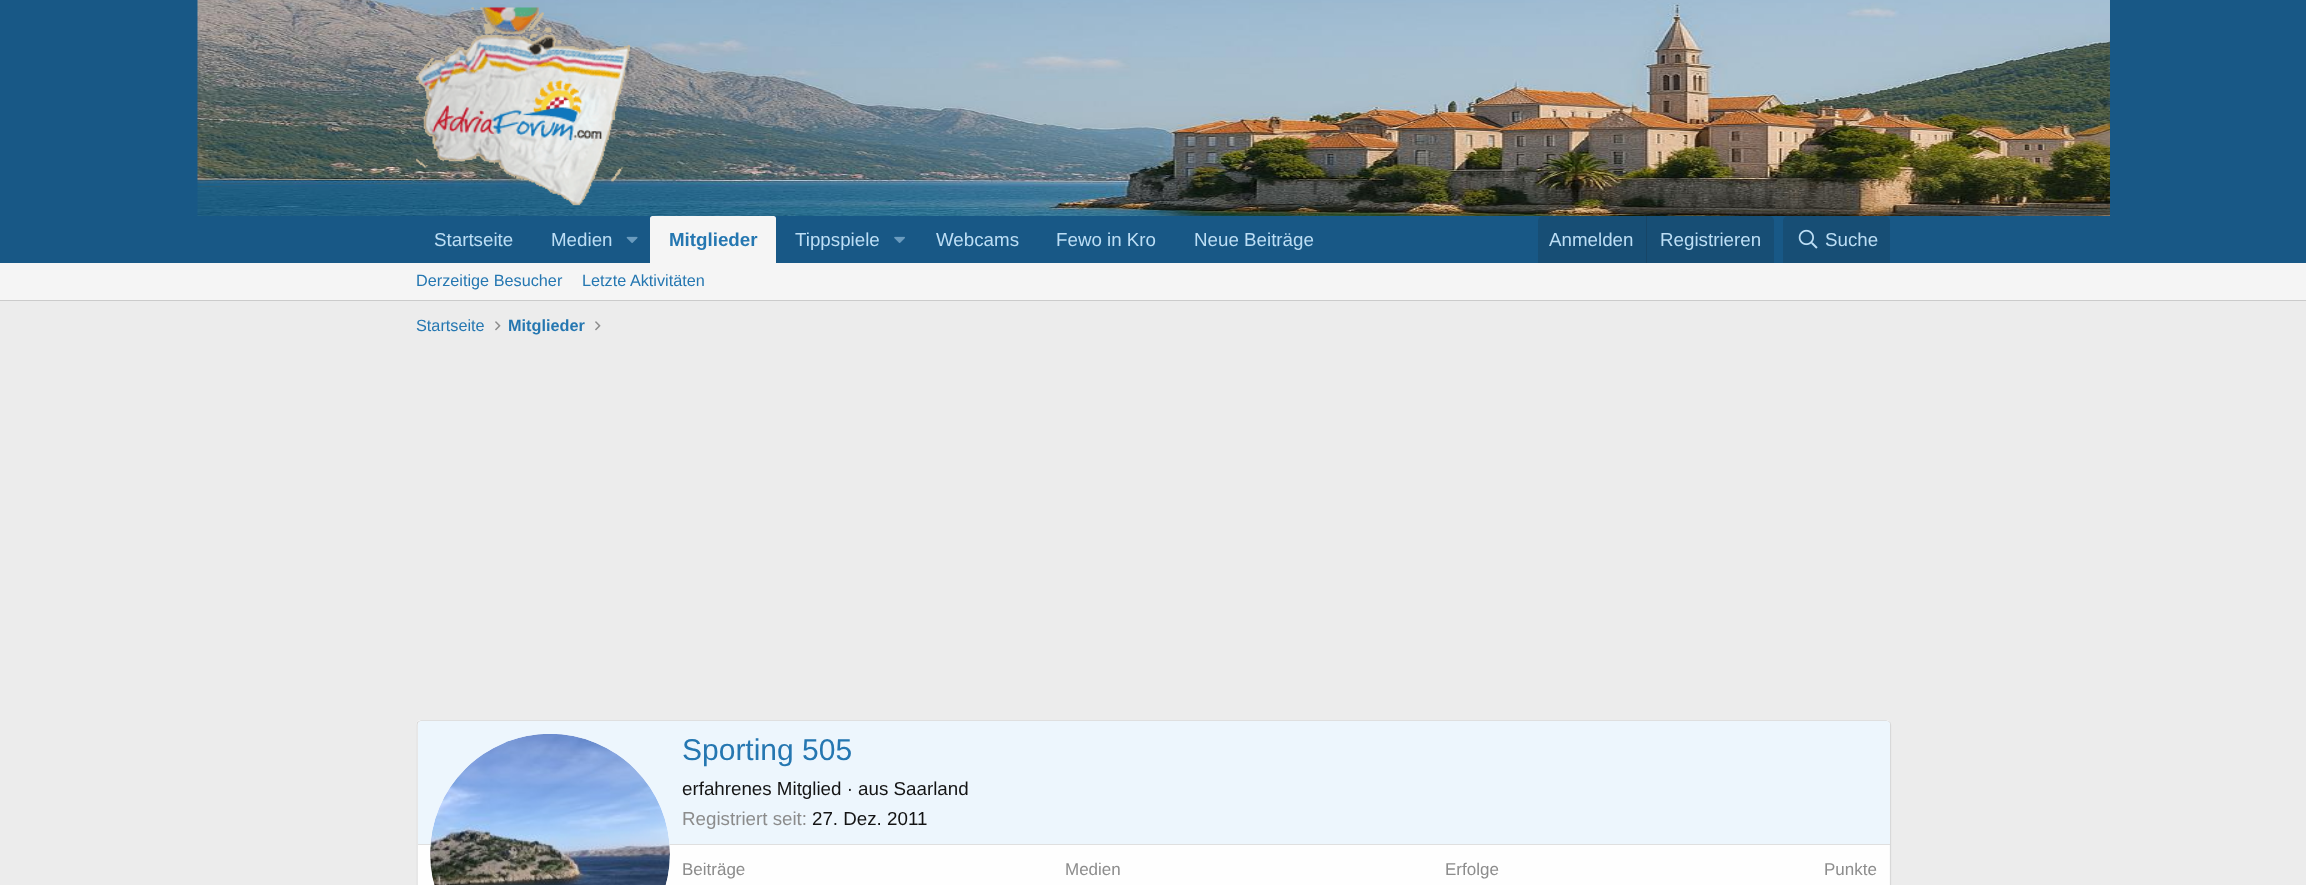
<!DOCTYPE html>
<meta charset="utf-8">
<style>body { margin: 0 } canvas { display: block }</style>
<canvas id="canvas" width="2306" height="885"></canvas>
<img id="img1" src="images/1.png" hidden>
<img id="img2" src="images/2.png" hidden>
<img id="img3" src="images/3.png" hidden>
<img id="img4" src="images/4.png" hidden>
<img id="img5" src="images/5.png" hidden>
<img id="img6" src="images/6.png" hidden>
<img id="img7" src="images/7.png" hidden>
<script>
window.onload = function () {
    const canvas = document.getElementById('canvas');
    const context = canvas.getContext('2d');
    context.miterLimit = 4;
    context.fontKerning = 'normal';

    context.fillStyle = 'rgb(236, 236, 236)';
    context.fillRect(0, 0, 2306, 885);
    context.fillStyle = 'rgb(24, 88, 134)';
    context.fillRect(0, 0, 2306, 263);
    context.drawImage(document.getElementById('img1'), 197, 0, 1913, 216);
    context.drawImage(document.getElementById('img2'), 416, 7, 215, 199);
    context.drawImage(document.getElementById('img3'), 626, 236, 12, 7);
    context.fillStyle = 'rgb(245, 245, 245)';
    context.beginPath();
    context.roundRect(650, 216, 126, 47, [2.5, 2.5, 0, 0]);
    context.fill();
    context.drawImage(document.getElementById('img4'), 894, 236, 11, 7);
    context.fillStyle = 'rgb(23, 78, 117)';
    context.beginPath();
    context.roundRect(1538, 216, 236, 47, [5, 5, 0, 0]);
    context.fill();
    context.fillStyle = 'rgb(23, 69, 102)';
    context.fillRect(1646, 216, 1, 47);
    context.fillStyle = 'rgb(23, 78, 117)';
    context.beginPath();
    context.roundRect(1783, 216, 107, 47, [5, 5, 0, 0]);
    context.fill();
    context.drawImage(document.getElementById('img5'), 1798, 229, 20, 20);
    context.fillStyle = 'rgb(245, 245, 245)';
    context.fillRect(0, 263, 2306, 37);
    context.fillStyle = 'rgb(203, 203, 203)';
    context.fillRect(0, 300, 2306, 1);
    context.drawImage(document.getElementById('img6'), 495, 321, 6, 10);
    context.drawImage(document.getElementById('img6'), 595, 321, 6, 10);
    context.fillStyle = 'rgb(254, 254, 254)';
    context.beginPath();
    context.roundRect(416, 720, 1475, 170, 5);
    context.fill();
    context.beginPath();
    context.moveTo(418, 722);
    context.lineTo(421, 720.5);
    context.lineTo(1886, 720.5);
    context.lineTo(1889.5, 722);
    context.strokeStyle = 'rgb(223, 223, 223)';
    context.lineWidth = 1.2;
    context.stroke();
    context.beginPath();
    context.moveTo(1889.5, 722);
    context.bezierCurveTo(1890, 722.5, 1890.5, 724, 1890.5, 725);
    context.lineTo(1890.5, 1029);
    context.bezierCurveTo(1890.5, 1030, 1890, 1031, 1889.5, 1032);
    context.strokeStyle = 'rgb(216, 216, 216)';
    context.stroke();
    context.beginPath();
    context.moveTo(418, 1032);
    context.bezierCurveTo(417.5, 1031, 417, 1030, 417, 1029);
    context.lineTo(417, 725);
    context.bezierCurveTo(417, 724, 417.5, 722.5, 418, 722);
    context.stroke();
    context.fillStyle = 'rgb(237, 246, 253)';
    context.beginPath();
    context.roundRect(418, 721, 1472, 124, [4, 4, 0, 0]);
    context.fill();
    context.fillStyle = 'rgb(223, 223, 223)';
    context.fillRect(418, 844, 1472, 1);
    context.fillStyle = 'rgb(254, 254, 254)';
    context.beginPath();
    context.arc(550, 854, 120, 0, 2 * Math.PI);
    context.fill();
    context.drawImage(document.getElementById('img7'), 430, 734, 240, 151);
    context.font = '18.75px Liberation Sans';
    context.fillStyle = 'rgb(188, 222, 245)';
    context.fillText('Startseite', 434, 246);
    context.fillText('Medien', 551, 246);
    context.font = 'bold 18.75px Liberation Sans';
    context.fillStyle = 'rgb(37, 119, 177)';
    context.fillText('Mitglieder', 669, 246);
    context.font = '18.75px Liberation Sans';
    context.fillStyle = 'rgb(188, 222, 245)';
    context.fillText('Tippspiele', 795, 246);
    context.fillText('Webcams', 936, 246);
    context.fillText('Fewo in Kro', 1056, 246);
    context.fillText('Neue Beiträge', 1194, 246);
    context.fillText('Anmelden', 1549, 246);
    context.fillText('Registrieren', 1660, 246);
    context.fillText('Suche', 1825, 246);
    context.font = '16.25px Liberation Sans';
    context.fillStyle = 'rgb(37, 119, 177)';
    context.fillText('Derzeitige Besucher', 416, 286);
    context.fillText('Letzte Aktivitäten', 582, 286);
    context.fillText('Startseite', 416, 331);
    context.font = 'bold 16.25px Liberation Sans';
    context.fillText('Mitglieder', 508, 331);
    context.font = '30px Liberation Sans';
    context.fillText('Sporting 505', 682, 760);
    context.font = '18.75px Liberation Sans';
    context.fillStyle = 'rgb(20, 20, 20)';
    context.fillText('erfahrenes Mitglied · aus Saarland', 682, 795);
    context.fillStyle = 'rgb(140, 140, 140)';
    context.fillText('Registriert seit:', 682, 825);
    context.fillStyle = 'rgb(20, 20, 20)';
    context.fillText('27. Dez. 2011', 812, 825);
    context.font = '17px Liberation Sans';
    context.fillStyle = 'rgb(140, 140, 140)';
    context.fillText('Beiträge', 682, 875);
    context.fillText('Medien', 1065, 875);
    context.fillText('Erfolge', 1445, 875);
    context.fillText('Punkte', 1824, 875);
};
</script>
